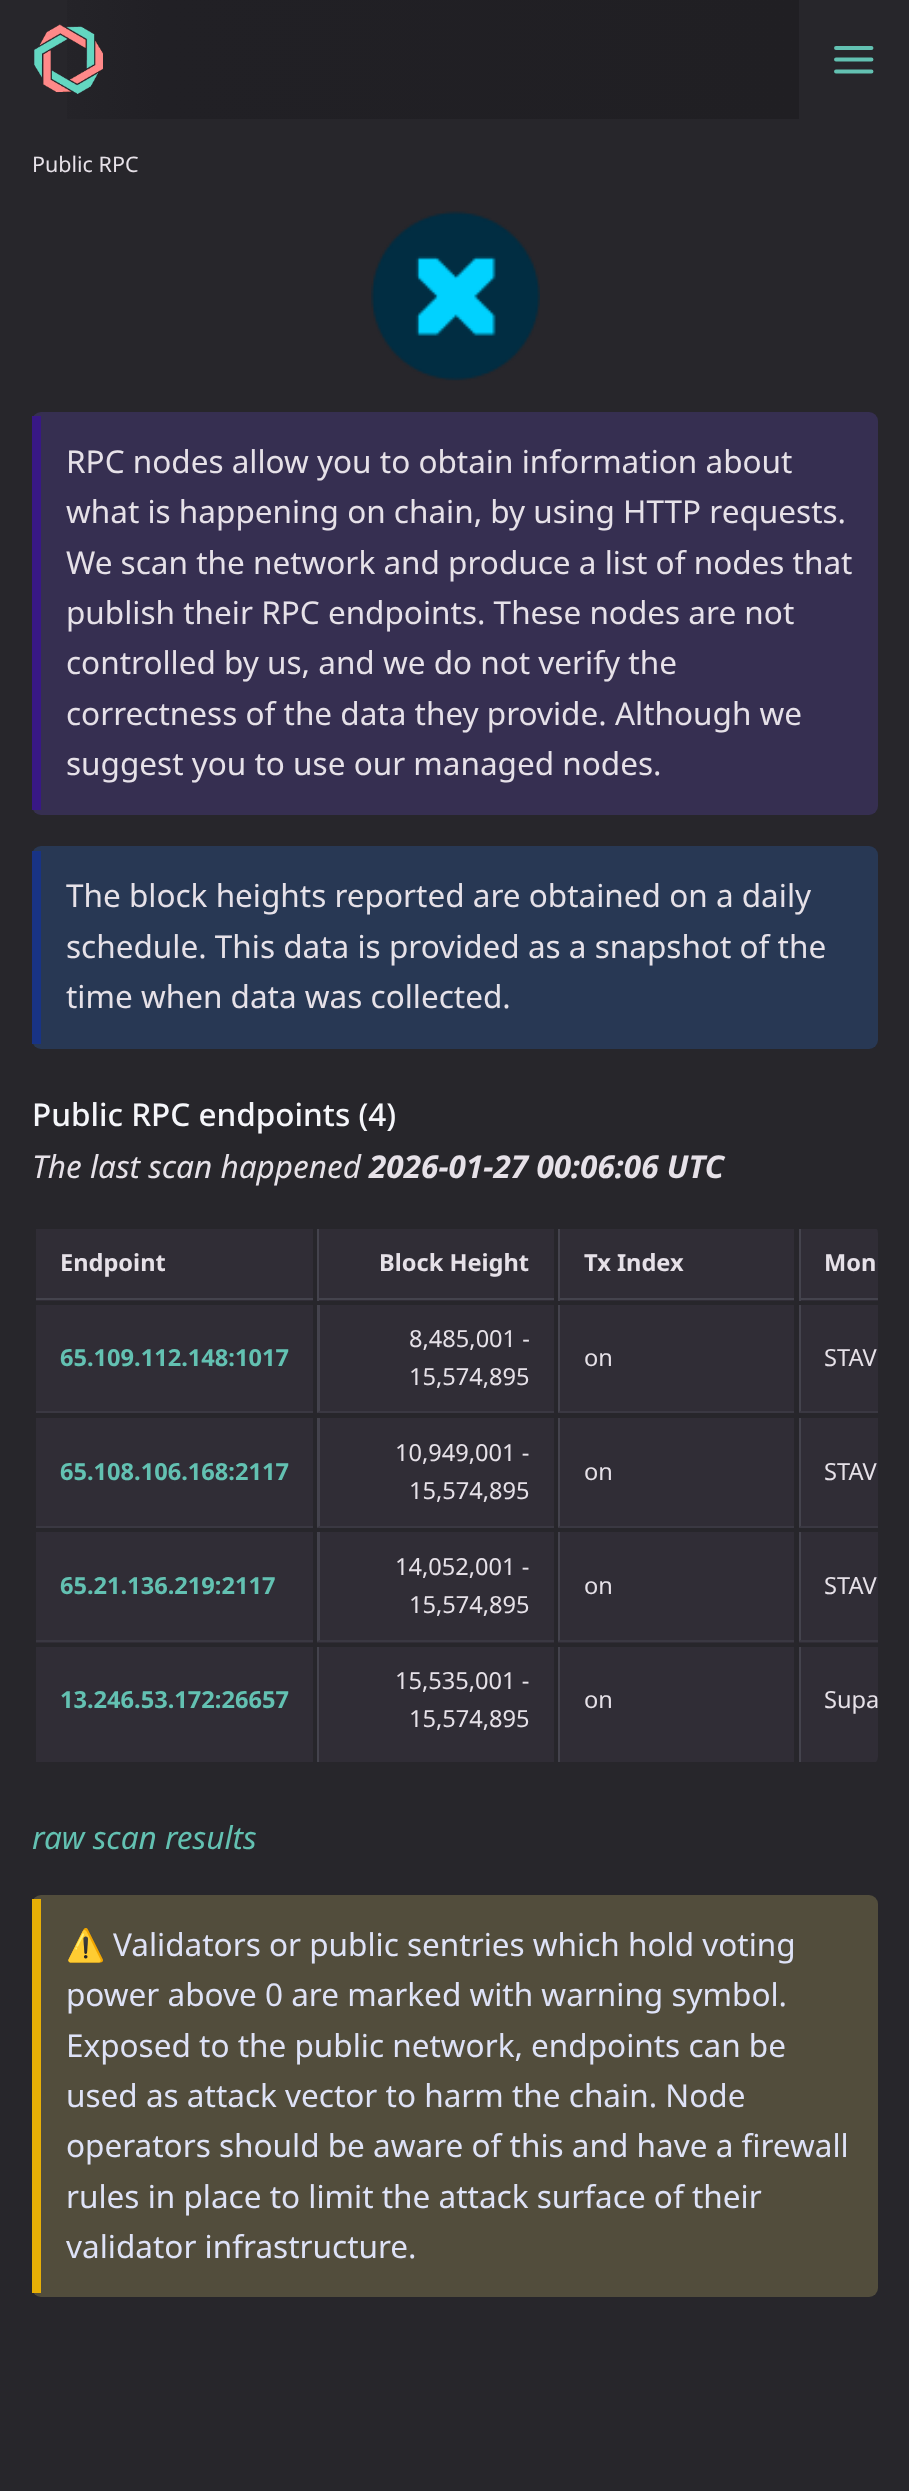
<!DOCTYPE html>
<meta charset="utf-8">
<style>body { margin: 0 } canvas { display: block }</style>
<canvas id="canvas" width="909" height="2491"></canvas>
<img id="img1" src="images/1.png" hidden>
<img id="img2" src="images/2.png" hidden>
<script>
window.onload = function () {
    const canvas = document.getElementById('canvas');
    const context = canvas.getContext('2d');
    context.miterLimit = 4;
    context.fontKerning = 'normal';
    let gradient;

    context.fillStyle = 'rgb(39, 38, 43)';
    context.fillRect(0, 0, 909, 2491);
    gradient = context.createLinearGradient(799, 60, 0, 60);
    gradient.addColorStop(0, 'rgb(32, 31, 35)');
    gradient.addColorStop(0.8, 'rgb(33, 32, 37)');
    gradient.addColorStop(1, 'rgb(39, 38, 43)');
    context.fillStyle = gradient;
    context.fillRect(67, 0, 732, 119);
    context.drawImage(document.getElementById('img1'), 34, 24, 69, 70);
    context.beginPath();
    context.moveTo(836, 59.5);
    context.lineTo(871.5, 59.5);
    context.moveTo(836, 48);
    context.lineTo(871.5, 48);
    context.moveTo(836, 71.5);
    context.lineTo(871.5, 71.5);
    context.strokeStyle = 'rgb(99, 193, 178)';
    context.lineWidth = 3.9;
    context.lineCap = 'round';
    context.lineJoin = 'round';
    context.stroke();
    context.drawImage(document.getElementById('img2'), 371, 211, 169, 170);
    context.fillStyle = 'rgba(114, 83, 237, 0.2)';
    context.beginPath();
    context.roundRect(32, 412, 846, 403, 9);
    context.fill();
    context.fillStyle = 'rgb(56, 24, 133)';
    context.fillRect(32, 416, 9, 394);
    context.fillStyle = 'rgba(44, 132, 250, 0.2)';
    context.beginPath();
    context.roundRect(32, 846, 846, 203, 9);
    context.fill();
    context.fillStyle = 'rgb(24, 51, 133)';
    context.fillRect(32, 851, 9, 193);
    context.fillStyle = 'rgb(48, 45, 54)';
    context.fillRect(36, 1229, 277, 72);
    context.fillStyle = 'rgb(68, 67, 77)';
    context.fillRect(36, 1298, 277, 2);
    context.fillStyle = 'rgb(48, 45, 54)';
    context.fillRect(319, 1229, 235, 72);
    context.fillStyle = 'rgb(68, 67, 77)';
    context.fillRect(317, 1298, 237, 2);
    context.fillRect(317, 1229, 2, 72);
    context.fillStyle = 'rgb(48, 45, 54)';
    context.fillRect(560, 1229, 234, 72);
    context.fillStyle = 'rgb(68, 67, 77)';
    context.fillRect(558, 1298, 236, 2);
    context.fillRect(558, 1229, 2, 72);
    context.save();
    context.beginPath();
    context.roundRect(32, 1224, 846, 542, 9);
    context.clip();
    context.fillStyle = 'rgb(48, 45, 54)';
    context.fillRect(801, 1229, 77, 72);
    context.restore();
    context.fillRect(799, 1298, 79, 2);
    context.fillRect(799, 1229, 2, 72);
    context.fillStyle = 'rgb(48, 45, 54)';
    context.fillRect(36, 1305, 277, 106);
    context.fillStyle = 'rgb(58, 56, 66)';
    context.fillRect(36, 1411, 277, 2);
    context.fillStyle = 'rgb(48, 45, 54)';
    context.fillRect(317, 1305, 237, 108);
    context.fillStyle = 'rgb(58, 56, 66)';
    context.beginPath();
    context.moveTo(554, 1413);
    context.lineTo(317, 1413);
    context.lineTo(320, 1411);
    context.lineTo(554, 1411);
    context.closePath();
    context.fill();
    context.fillStyle = 'rgb(68, 67, 77)';
    context.beginPath();
    context.moveTo(317, 1413);
    context.lineTo(317, 1305);
    context.lineTo(320, 1305);
    context.lineTo(320, 1411);
    context.closePath();
    context.fill();
    context.fillStyle = 'rgb(48, 45, 54)';
    context.fillRect(558, 1305, 236, 108);
    context.fillStyle = 'rgb(58, 56, 66)';
    context.beginPath();
    context.moveTo(794, 1413);
    context.lineTo(558, 1413);
    context.lineTo(560, 1411);
    context.lineTo(794, 1411);
    context.closePath();
    context.fill();
    context.fillStyle = 'rgb(68, 67, 77)';
    context.beginPath();
    context.moveTo(558, 1413);
    context.lineTo(558, 1305);
    context.lineTo(560, 1305);
    context.lineTo(560, 1411);
    context.closePath();
    context.fill();
    context.fillStyle = 'rgb(48, 45, 54)';
    context.fillRect(799, 1305, 79, 108);
    context.fillStyle = 'rgb(58, 56, 66)';
    context.beginPath();
    context.moveTo(878, 1411);
    context.lineTo(878, 1413);
    context.lineTo(799, 1413);
    context.lineTo(801, 1411);
    context.closePath();
    context.fill();
    context.fillStyle = 'rgb(68, 67, 77)';
    context.beginPath();
    context.moveTo(799, 1413);
    context.lineTo(799, 1305);
    context.lineTo(801, 1305);
    context.lineTo(801, 1411);
    context.closePath();
    context.fill();
    context.fillStyle = 'rgb(48, 45, 54)';
    context.fillRect(36, 1418, 277, 108);
    context.fillStyle = 'rgb(58, 56, 66)';
    context.fillRect(36, 1526, 277, 2);
    context.fillStyle = 'rgb(48, 45, 54)';
    context.fillRect(317, 1418, 237, 110);
    context.fillStyle = 'rgb(58, 56, 66)';
    context.beginPath();
    context.moveTo(554, 1528);
    context.lineTo(317, 1528);
    context.lineTo(320, 1526);
    context.lineTo(554, 1526);
    context.closePath();
    context.fill();
    context.fillStyle = 'rgb(68, 67, 77)';
    context.beginPath();
    context.moveTo(317, 1528);
    context.lineTo(317, 1418);
    context.lineTo(320, 1418);
    context.lineTo(320, 1526);
    context.closePath();
    context.fill();
    context.fillStyle = 'rgb(48, 45, 54)';
    context.fillRect(558, 1418, 236, 110);
    context.fillStyle = 'rgb(58, 56, 66)';
    context.beginPath();
    context.moveTo(794, 1528);
    context.lineTo(558, 1528);
    context.lineTo(560, 1526);
    context.lineTo(794, 1526);
    context.closePath();
    context.fill();
    context.fillStyle = 'rgb(68, 67, 77)';
    context.beginPath();
    context.moveTo(558, 1528);
    context.lineTo(558, 1418);
    context.lineTo(560, 1418);
    context.lineTo(560, 1526);
    context.closePath();
    context.fill();
    context.fillStyle = 'rgb(48, 45, 54)';
    context.fillRect(799, 1418, 79, 110);
    context.fillStyle = 'rgb(58, 56, 66)';
    context.beginPath();
    context.moveTo(878, 1526);
    context.lineTo(878, 1528);
    context.lineTo(799, 1528);
    context.lineTo(801, 1526);
    context.closePath();
    context.fill();
    context.fillStyle = 'rgb(68, 67, 77)';
    context.beginPath();
    context.moveTo(799, 1528);
    context.lineTo(799, 1418);
    context.lineTo(801, 1418);
    context.lineTo(801, 1526);
    context.closePath();
    context.fill();
    context.fillStyle = 'rgb(48, 45, 54)';
    context.fillRect(36, 1532, 277, 111);
    context.fillStyle = 'rgb(58, 56, 66)';
    context.fillRect(36, 1640, 277, 2);
    context.fillStyle = 'rgb(48, 45, 54)';
    context.fillRect(317, 1532, 237, 111);
    context.fillStyle = 'rgb(58, 56, 66)';
    context.beginPath();
    context.moveTo(554, 1642);
    context.lineTo(317, 1642);
    context.lineTo(320, 1640);
    context.lineTo(554, 1640);
    context.closePath();
    context.fill();
    context.fillStyle = 'rgb(68, 67, 77)';
    context.beginPath();
    context.moveTo(317, 1642);
    context.lineTo(317, 1532);
    context.lineTo(320, 1532);
    context.lineTo(320, 1640);
    context.closePath();
    context.fill();
    context.fillStyle = 'rgb(48, 45, 54)';
    context.fillRect(558, 1532, 236, 111);
    context.fillStyle = 'rgb(58, 56, 66)';
    context.beginPath();
    context.moveTo(794, 1642);
    context.lineTo(558, 1642);
    context.lineTo(560, 1640);
    context.lineTo(794, 1640);
    context.closePath();
    context.fill();
    context.fillStyle = 'rgb(68, 67, 77)';
    context.beginPath();
    context.moveTo(558, 1642);
    context.lineTo(558, 1532);
    context.lineTo(560, 1532);
    context.lineTo(560, 1640);
    context.closePath();
    context.fill();
    context.fillStyle = 'rgb(48, 45, 54)';
    context.fillRect(799, 1532, 79, 111);
    context.fillStyle = 'rgb(58, 56, 66)';
    context.beginPath();
    context.moveTo(878, 1640);
    context.lineTo(878, 1642);
    context.lineTo(799, 1642);
    context.lineTo(801, 1640);
    context.closePath();
    context.fill();
    context.fillStyle = 'rgb(68, 67, 77)';
    context.beginPath();
    context.moveTo(799, 1642);
    context.lineTo(799, 1532);
    context.lineTo(801, 1532);
    context.lineTo(801, 1640);
    context.closePath();
    context.fill();
    context.fillStyle = 'rgb(48, 45, 54)';
    context.fillRect(36, 1647, 277, 115);
    context.fillRect(319, 1647, 235, 115);
    context.fillStyle = 'rgb(68, 67, 77)';
    context.fillRect(317, 1647, 2, 115);
    context.fillStyle = 'rgb(48, 45, 54)';
    context.fillRect(560, 1647, 234, 115);
    context.fillStyle = 'rgb(68, 67, 77)';
    context.fillRect(558, 1647, 2, 115);
    context.save();
    context.beginPath();
    context.roundRect(32, 1224, 846, 542, 9);
    context.clip();
    context.fillStyle = 'rgb(48, 45, 54)';
    context.fillRect(801, 1647, 77, 115);
    context.restore();
    context.fillRect(799, 1647, 2, 115);
    context.fillStyle = 'rgba(255, 235, 130, 0.2)';
    context.beginPath();
    context.roundRect(32, 1895, 846, 402, 9);
    context.fill();
    context.fillStyle = 'rgb(231, 175, 6)';
    context.fillRect(32, 1899, 9, 394);
    context.font = '21.5px Noto Sans';
    context.fillStyle = 'rgb(230, 225, 232)';
    context.fillText('Public RPC', 32, 172);
    context.font = '31.5px Noto Sans';
    context.fillText('RPC nodes allow you to obtain information about', 66, 473);
    context.fillText('what is happening on chain, by using HTTP requests.', 66, 523);
    context.fillText('We scan the network and produce a list of nodes that', 66, 574);
    context.fillText('publish their RPC endpoints. These nodes are not', 66, 624);
    context.fillText('controlled by us, and we do not verify the', 66, 674);
    context.fillText('correctness of the data they provide. Although we', 66, 725);
    context.fillText('suggest you to use our managed nodes.', 66, 775);
    context.fillText('The block heights reported are obtained on a daily', 66, 907);
    context.fillText('schedule. This data is provided as a snapshot of the', 66, 958);
    context.fillText('time when data was collected.', 66, 1008);
    context.font = '500 31.5px Noto Sans';
    context.fillStyle = 'rgb(245, 246, 250)';
    context.fillText('Public RPC endpoints (4)', 32, 1126);
    context.font = 'italic 31.5px Noto Sans';
    context.fillStyle = 'rgb(230, 225, 232)';
    context.fillText('The last scan happened', 32, 1178);
    context.font = 'italic bold 31.5px Noto Sans';
    context.fillText('2026-01-27 00:06:06 UTC', 369, 1178);
    context.font = 'bold 23.6px Noto Sans';
    context.fillText('Endpoint', 60, 1271);
    context.fillText('Block Height', 379, 1271);
    context.fillText('Tx Index', 584, 1271);
    context.fillText('Mon', 824, 1271);
    context.fillStyle = 'rgb(99, 193, 178)';
    context.fillText('65.109.112.148:1017', 60, 1366);
    context.font = '23.6px Noto Sans';
    context.fillStyle = 'rgb(230, 225, 232)';
    context.fillText('8,485,001 -', 409, 1347);
    context.fillText('15,574,895', 409, 1385);
    context.fillText('on', 584, 1366);
    context.fillText('STAV', 824, 1366);
    context.font = 'bold 23.6px Noto Sans';
    context.fillStyle = 'rgb(99, 193, 178)';
    context.fillText('65.108.106.168:2117', 60, 1480);
    context.font = '23.6px Noto Sans';
    context.fillStyle = 'rgb(230, 225, 232)';
    context.fillText('10,949,001 -', 395, 1461);
    context.fillText('15,574,895', 409, 1499);
    context.fillText('on', 584, 1480);
    context.fillText('STAV', 824, 1480);
    context.font = 'bold 23.6px Noto Sans';
    context.fillStyle = 'rgb(99, 193, 178)';
    context.fillText('65.21.136.219:2117', 60, 1594);
    context.font = '23.6px Noto Sans';
    context.fillStyle = 'rgb(230, 225, 232)';
    context.fillText('14,052,001 -', 395, 1575);
    context.fillText('15,574,895', 409, 1613);
    context.fillText('on', 584, 1594);
    context.fillText('STAV', 824, 1594);
    context.font = 'bold 23.6px Noto Sans';
    context.fillStyle = 'rgb(99, 193, 178)';
    context.fillText('13.246.53.172:26657', 60, 1708);
    context.font = '23.6px Noto Sans';
    context.fillStyle = 'rgb(230, 225, 232)';
    context.fillText('15,535,001 -', 395, 1689);
    context.fillText('15,574,895', 409, 1727);
    context.fillText('on', 584, 1708);
    context.fillText('Supa', 824, 1708);
    context.font = 'italic 31.5px Noto Sans';
    context.fillStyle = 'rgb(99, 193, 178)';
    context.fillText('raw scan results', 32, 1849);
    context.font = '31.5px Noto Color Emoji';
    context.fillStyle = 'rgb(222, 226, 247)';
    context.fillText('⚠️', 66, 1956);
    context.font = '31.5px Noto Sans';
    context.fillText('Validators or public sentries which hold voting', 113, 1956);
    context.fillText('power above 0 are marked with warning symbol.', 66, 2006);
    context.fillText('Exposed to the public network, endpoints can be', 66, 2057);
    context.fillText('used as attack vector to harm the chain. Node', 66, 2107);
    context.fillText('operators should be aware of this and have a firewall', 66, 2157);
    context.fillText('rules in place to limit the attack surface of their', 66, 2208);
    context.fillText('validator infrastructure.', 66, 2258);
};
</script>
